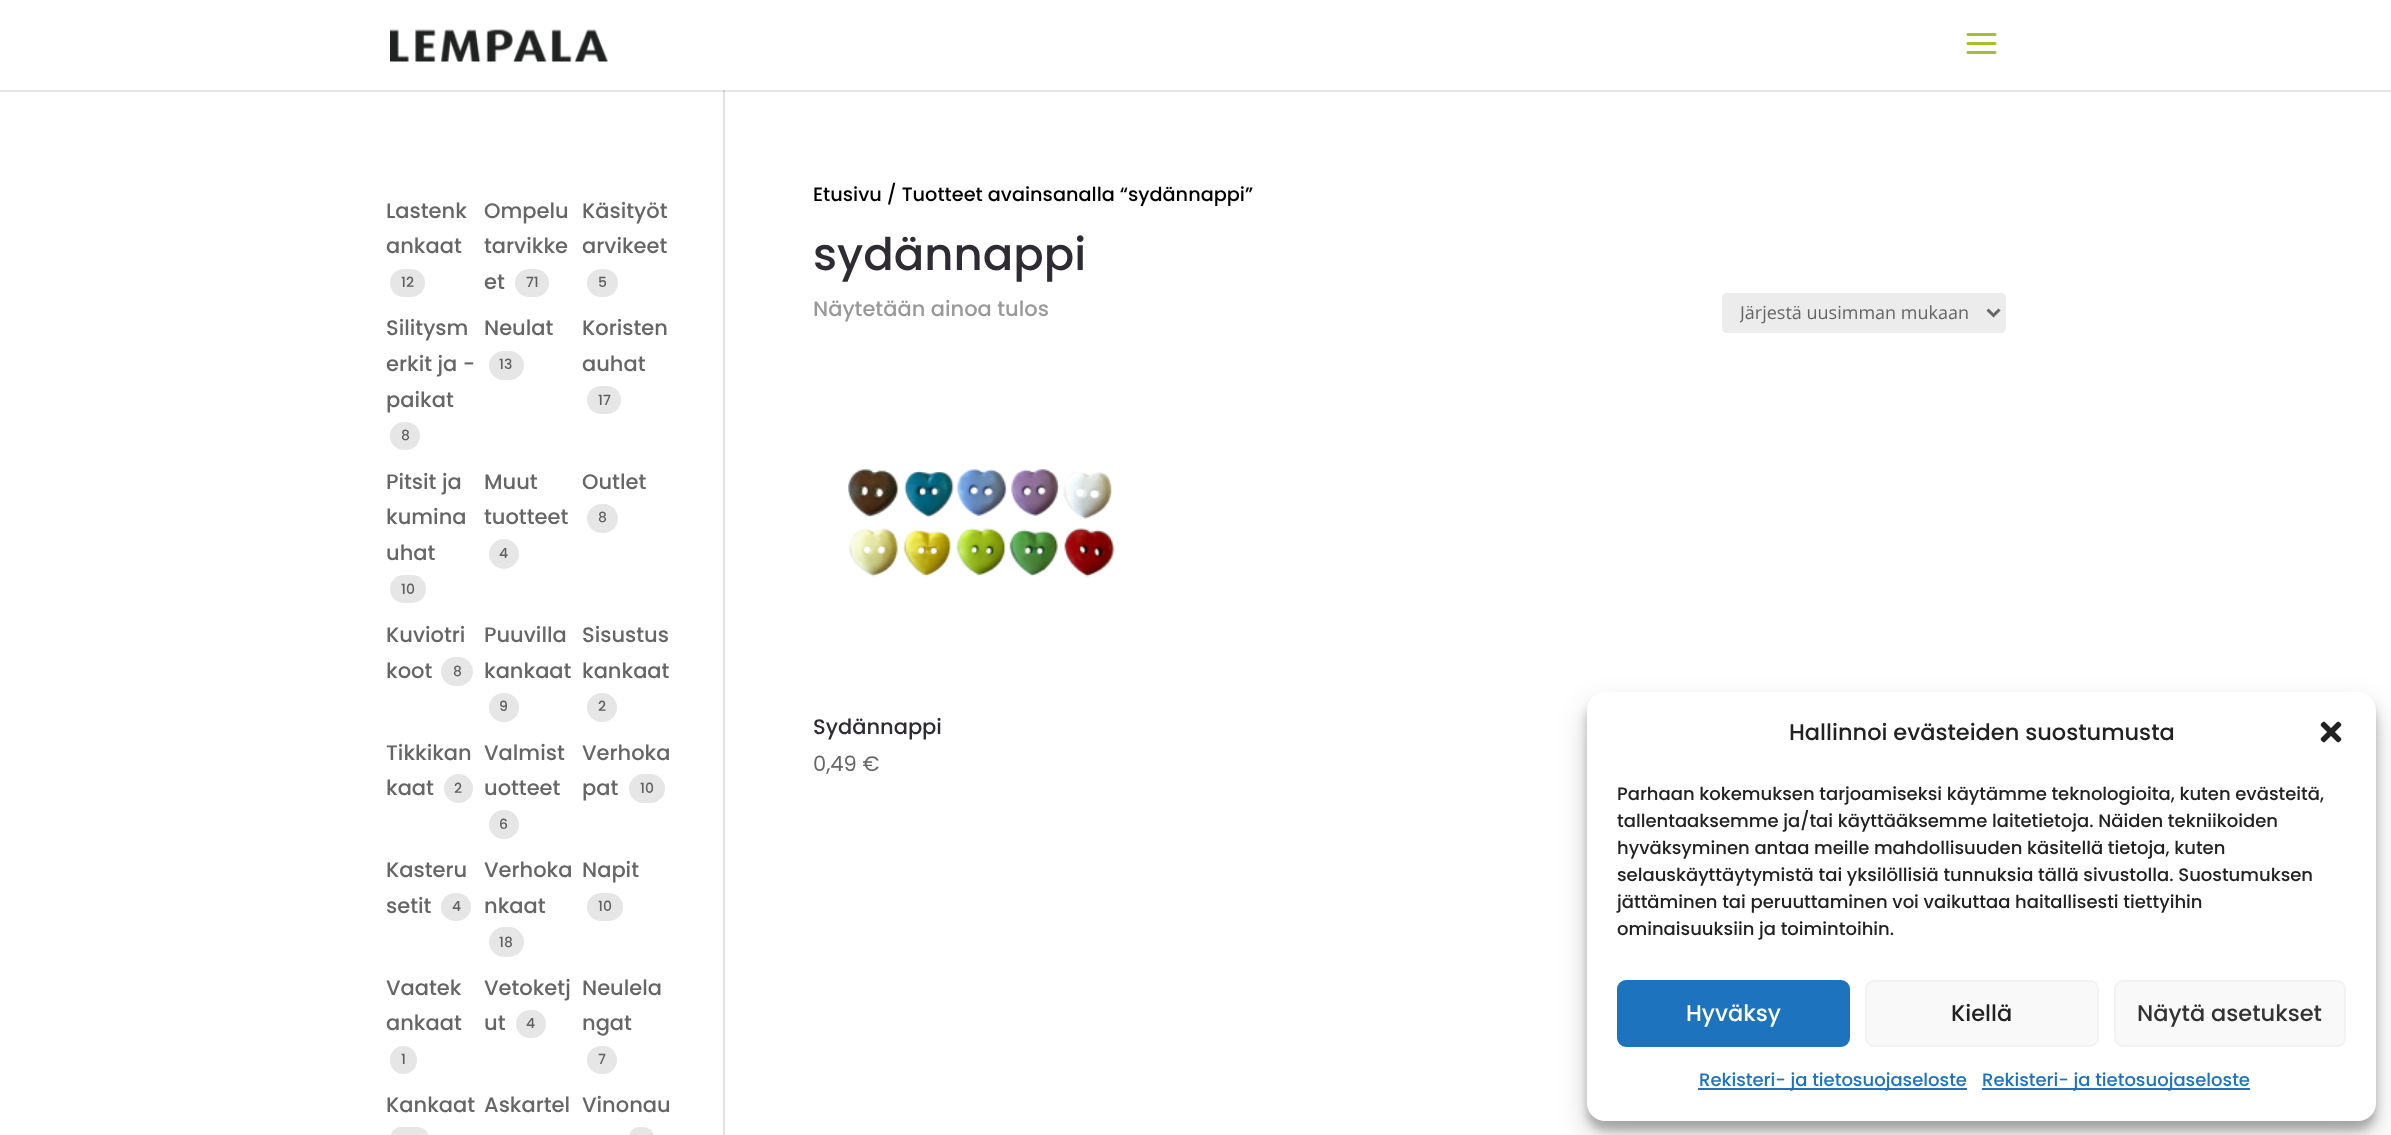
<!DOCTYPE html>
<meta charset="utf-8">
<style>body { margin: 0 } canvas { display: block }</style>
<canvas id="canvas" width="2391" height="1135"></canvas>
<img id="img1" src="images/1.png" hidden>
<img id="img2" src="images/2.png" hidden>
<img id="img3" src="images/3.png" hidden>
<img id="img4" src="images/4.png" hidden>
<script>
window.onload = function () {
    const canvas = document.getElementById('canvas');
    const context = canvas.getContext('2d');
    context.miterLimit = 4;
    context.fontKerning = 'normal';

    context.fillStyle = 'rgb(255, 255, 255)';
    context.fillRect(0, 0, 2391, 1135);
    context.fillStyle = 'rgb(230, 230, 230)';
    context.fillRect(0, 90, 2391, 2);
    context.drawImage(document.getElementById('img1'), 390, 29, 218, 33);
    context.drawImage(document.getElementById('img2'), 1966, 33, 31, 21);
    context.fillStyle = 'rgb(226, 226, 226)';
    context.fillRect(723, 90, 2, 1045);
    context.fillStyle = 'rgb(203, 203, 203)';
    context.fillRect(723, 90, 2, 2);
    context.fillStyle = 'rgb(230, 230, 230)';
    context.beginPath();
    context.roundRect(390, 269, 35, 28, 14);
    context.fill();
    context.beginPath();
    context.roundRect(515, 269, 34, 28, 14);
    context.fill();
    context.beginPath();
    context.roundRect(587, 269, 31, 28, 14);
    context.fill();
    context.beginPath();
    context.roundRect(390, 422, 30, 28, 14);
    context.fill();
    context.beginPath();
    context.roundRect(489, 351, 35, 29, 14.5);
    context.fill();
    context.beginPath();
    context.roundRect(587, 386, 34, 28, 14);
    context.fill();
    context.beginPath();
    context.roundRect(390, 575, 36, 28, 14);
    context.fill();
    context.beginPath();
    context.arc(504, 554, 15, 0, 2 * Math.PI);
    context.fill();
    context.beginPath();
    context.roundRect(587, 504, 31, 29, 14.5);
    context.fill();
    context.beginPath();
    context.roundRect(441, 657, 32, 29, 14.5);
    context.fill();
    context.beginPath();
    context.roundRect(489, 693, 30, 29, 14.5);
    context.fill();
    context.beginPath();
    context.roundRect(587, 693, 30, 29, 14.5);
    context.fill();
    context.beginPath();
    context.arc(458.5, 788.5, 14.5, 0, 2 * Math.PI);
    context.fill();
    context.beginPath();
    context.roundRect(489, 810, 30, 29, 14.5);
    context.fill();
    context.beginPath();
    context.roundRect(629, 774, 36, 29, 14.5);
    context.fill();
    context.beginPath();
    context.roundRect(441, 893, 30, 28, 14);
    context.fill();
    context.beginPath();
    context.roundRect(489, 927, 35, 30, 15);
    context.fill();
    context.beginPath();
    context.roundRect(587, 893, 36, 28, 14);
    context.fill();
    context.beginPath();
    context.roundRect(390, 1046, 27, 28, 13.5);
    context.fill();
    context.beginPath();
    context.roundRect(516, 1010, 30, 28, 14);
    context.fill();
    context.beginPath();
    context.roundRect(587, 1046, 30, 28, 14);
    context.fill();
    context.beginPath();
    context.roundRect(390, 1127, 39, 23, 15);
    context.fill();
    context.beginPath();
    context.roundRect(629, 1127, 25, 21, 12.5);
    context.fill();
    context.fillStyle = 'rgb(236, 236, 236)';
    context.beginPath();
    context.roundRect(1722, 293, 284, 40, 5);
    context.fill();
    context.beginPath();
    context.moveTo(1987.5, 309.5);
    context.lineTo(1993.5, 315.5);
    context.lineTo(1999.5, 309.5);
    context.strokeStyle = 'rgb(102, 102, 102)';
    context.lineWidth = 3;
    context.stroke();
    context.drawImage(document.getElementById('img3'), 848, 469, 267, 108);
    context.fillStyle = 'rgba(0, 0, 0, 0.23)';
    context.filter = 'blur(4.5px)';
    context.beginPath();
    context.roundRect(1587, 701, 789, 429, 18);
    context.fill();
    context.filter = 'none';
    context.fillStyle = 'rgba(0, 0, 0, 0.19)';
    context.filter = 'blur(15px)';
    context.beginPath();
    context.roundRect(1587, 707, 789, 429, 18);
    context.fill();
    context.filter = 'none';
    context.fillStyle = 'rgb(255, 255, 255)';
    context.beginPath();
    context.roundRect(1587, 692, 789, 429, 18);
    context.fill();
    context.drawImage(document.getElementById('img4'), 2320, 721, 22, 22);
    context.fillStyle = 'rgb(30, 115, 190)';
    context.beginPath();
    context.roundRect(1618, 981, 231, 65, 8);
    context.fill();
    context.strokeStyle = 'rgb(30, 115, 190)';
    context.lineWidth = 2;
    context.stroke();
    context.fillStyle = 'rgb(249, 249, 249)';
    context.beginPath();
    context.roundRect(1866, 981, 232, 65, 8);
    context.fill();
    context.strokeStyle = 'rgb(242, 242, 242)';
    context.stroke();
    context.beginPath();
    context.roundRect(2115, 981, 230, 65, 8);
    context.fill();
    context.stroke();
    context.fillStyle = 'rgb(30, 115, 190)';
    context.fillRect(1698, 1088, 269, 2);
    context.fillRect(1982, 1088, 268, 2);
    context.font = '500 21px Poppins';
    context.fillStyle = 'rgb(102, 102, 102)';
    context.fillText('Lastenk', 386, 218);
    context.fillText('ankaat', 386, 253);
    context.font = '500 14px Poppins';
    context.fillStyle = 'rgb(95, 95, 95)';
    context.fillText('12', 401, 287);
    context.font = '500 21px Poppins';
    context.fillStyle = 'rgb(102, 102, 102)';
    context.fillText('Ompelu', 484, 218);
    context.fillText('tarvikke', 484, 253);
    context.fillText('et', 484, 289);
    context.font = '500 14px Poppins';
    context.fillStyle = 'rgb(95, 95, 95)';
    context.fillText('71', 526, 287);
    context.font = '500 21px Poppins';
    context.fillStyle = 'rgb(102, 102, 102)';
    context.fillText('Käsityöt', 582, 218);
    context.fillText('arvikeet', 582, 253);
    context.font = '500 14px Poppins';
    context.fillStyle = 'rgb(95, 95, 95)';
    context.fillText('5', 598, 287);
    context.font = '500 21px Poppins';
    context.fillStyle = 'rgb(102, 102, 102)';
    context.fillText('Silitysm', 386, 335);
    context.fillText('erkit ja -', 386, 371);
    context.fillText('paikat', 386, 407);
    context.font = '500 14px Poppins';
    context.fillStyle = 'rgb(95, 95, 95)';
    context.fillText('8', 401, 440);
    context.font = '500 21px Poppins';
    context.fillStyle = 'rgb(102, 102, 102)';
    context.fillText('Neulat', 484, 335);
    context.font = '500 14px Poppins';
    context.fillStyle = 'rgb(95, 95, 95)';
    context.fillText('13', 499, 369);
    context.font = '500 21px Poppins';
    context.fillStyle = 'rgb(102, 102, 102)';
    context.fillText('Koristen', 582, 335);
    context.fillText('auhat', 582, 371);
    context.font = '500 14px Poppins';
    context.fillStyle = 'rgb(95, 95, 95)';
    context.fillText('17', 598, 405);
    context.font = '500 21px Poppins';
    context.fillStyle = 'rgb(102, 102, 102)';
    context.fillText('Pitsit ja', 386, 489);
    context.fillText('kumina', 386, 524);
    context.fillText('uhat', 386, 560);
    context.font = '500 14px Poppins';
    context.fillStyle = 'rgb(95, 95, 95)';
    context.fillText('10', 401, 594);
    context.font = '500 21px Poppins';
    context.fillStyle = 'rgb(102, 102, 102)';
    context.fillText('Muut', 484, 489);
    context.fillText('tuotteet', 484, 524);
    context.font = '500 14px Poppins';
    context.fillStyle = 'rgb(95, 95, 95)';
    context.fillText('4', 499, 558);
    context.font = '500 21px Poppins';
    context.fillStyle = 'rgb(102, 102, 102)';
    context.fillText('Outlet', 582, 489);
    context.font = '500 14px Poppins';
    context.fillStyle = 'rgb(95, 95, 95)';
    context.fillText('8', 598, 522);
    context.font = '500 21px Poppins';
    context.fillStyle = 'rgb(102, 102, 102)';
    context.fillText('Kuviotri', 386, 642);
    context.fillText('koot', 386, 678);
    context.font = '500 14px Poppins';
    context.fillStyle = 'rgb(95, 95, 95)';
    context.fillText('8', 453, 676);
    context.font = '500 21px Poppins';
    context.fillStyle = 'rgb(102, 102, 102)';
    context.fillText('Puuvilla', 484, 642);
    context.fillText('kankaat', 484, 678);
    context.font = '500 14px Poppins';
    context.fillStyle = 'rgb(95, 95, 95)';
    context.fillText('9', 499, 711);
    context.font = '500 21px Poppins';
    context.fillStyle = 'rgb(102, 102, 102)';
    context.fillText('Sisustus', 582, 642);
    context.fillText('kankaat', 582, 678);
    context.font = '500 14px Poppins';
    context.fillStyle = 'rgb(95, 95, 95)';
    context.fillText('2', 598, 711);
    context.font = '500 21px Poppins';
    context.fillStyle = 'rgb(102, 102, 102)';
    context.fillText('Tikkikan', 386, 760);
    context.fillText('kaat', 386, 795);
    context.font = '500 14px Poppins';
    context.fillStyle = 'rgb(95, 95, 95)';
    context.fillText('2', 454, 793);
    context.font = '500 21px Poppins';
    context.fillStyle = 'rgb(102, 102, 102)';
    context.fillText('Valmist', 484, 760);
    context.fillText('uotteet', 484, 795);
    context.font = '500 14px Poppins';
    context.fillStyle = 'rgb(95, 95, 95)';
    context.fillText('6', 499, 829);
    context.font = '500 21px Poppins';
    context.fillStyle = 'rgb(102, 102, 102)';
    context.fillText('Verhoka', 582, 760);
    context.fillText('pat', 582, 795);
    context.font = '500 14px Poppins';
    context.fillStyle = 'rgb(95, 95, 95)';
    context.fillText('10', 640, 793);
    context.font = '500 21px Poppins';
    context.fillStyle = 'rgb(102, 102, 102)';
    context.fillText('Kasteru', 386, 877);
    context.fillText('setit', 386, 913);
    context.font = '500 14px Poppins';
    context.fillStyle = 'rgb(95, 95, 95)';
    context.fillText('4', 452, 911);
    context.font = '500 21px Poppins';
    context.fillStyle = 'rgb(102, 102, 102)';
    context.fillText('Verhoka', 484, 877);
    context.fillText('nkaat', 484, 913);
    context.font = '500 14px Poppins';
    context.fillStyle = 'rgb(95, 95, 95)';
    context.fillText('18', 499, 947);
    context.font = '500 21px Poppins';
    context.fillStyle = 'rgb(102, 102, 102)';
    context.fillText('Napit', 582, 877);
    context.font = '500 14px Poppins';
    context.fillStyle = 'rgb(95, 95, 95)';
    context.fillText('10', 598, 911);
    context.font = '500 21px Poppins';
    context.fillStyle = 'rgb(102, 102, 102)';
    context.fillText('Vaatek', 386, 995);
    context.fillText('ankaat', 386, 1030);
    context.font = '500 14px Poppins';
    context.fillStyle = 'rgb(95, 95, 95)';
    context.fillText('1', 401, 1064);
    context.font = '500 21px Poppins';
    context.fillStyle = 'rgb(102, 102, 102)';
    context.fillText('Vetoketj', 484, 995);
    context.fillText('ut', 484, 1030);
    context.font = '500 14px Poppins';
    context.fillStyle = 'rgb(95, 95, 95)';
    context.fillText('4', 526, 1028);
    context.font = '500 21px Poppins';
    context.fillStyle = 'rgb(102, 102, 102)';
    context.fillText('Neulela', 582, 995);
    context.fillText('ngat', 582, 1030);
    context.font = '500 14px Poppins';
    context.fillStyle = 'rgb(95, 95, 95)';
    context.fillText('7', 598, 1064);
    context.font = '500 21px Poppins';
    context.fillStyle = 'rgb(102, 102, 102)';
    context.fillText('Kankaat', 386, 1112);
    context.fillText('Askartel', 484, 1112);
    context.fillText('Vinonau', 582, 1112);
    context.font = '500 19.3px Poppins';
    context.fillStyle = 'rgb(0, 0, 0)';
    context.fillText('Etusivu / Tuotteet avainsanalla “sydännappi”', 813, 201);
    context.font = '500 45px Poppins';
    context.fillStyle = 'rgb(47, 43, 50)';
    context.fillText('sydännappi', 813, 270);
    context.font = '500 21px Poppins';
    context.fillStyle = 'rgb(153, 153, 153)';
    context.fillText('Näytetään ainoa tulos', 813, 316);
    context.save();
    context.beginPath();
    context.rect(1740, 299, 230, 28);
    context.clip();
    context.font = '18px Open Sans';
    context.fillStyle = 'rgb(102, 102, 102)';
    context.fillText('Järjestä uusimman mukaan', 1740, 319);
    context.restore();
    context.fillStyle = 'rgb(47, 43, 50)';
    context.fillText('Sydännappi', 813, 734);
    context.font = '21px Poppins';
    context.fillStyle = 'rgb(102, 102, 102)';
    context.fillText('0,49 €', 813, 771);
    context.font = '500 22.5px Poppins';
    context.fillStyle = 'rgb(34, 34, 34)';
    context.fillText('Hallinnoi evästeiden suostumusta', 1789, 740);
    context.font = '500 18px Poppins';
    context.fillText('Parhaan kokemuksen tarjoamiseksi käytämme teknologioita, kuten evästeitä,', 1617, 800);
    context.fillText('tallentaaksemme ja/tai käyttääksemme laitetietoja. Näiden tekniikoiden', 1617, 827);
    context.fillText('hyväksyminen antaa meille mahdollisuuden käsitellä tietoja, kuten', 1617, 854);
    context.fillText('selauskäyttäytymistä tai yksilöllisiä tunnuksia tällä sivustolla. Suostumuksen', 1617, 881);
    context.fillText('jättäminen tai peruuttaminen voi vaikuttaa haitallisesti tiettyihin', 1617, 908);
    context.fillText('ominaisuuksiin ja toimintoihin.', 1617, 935);
    context.font = '500 22.5px Poppins';
    context.fillStyle = 'rgb(255, 255, 255)';
    context.fillText('Hyväksy', 1686, 1021);
    context.fillStyle = 'rgb(34, 34, 34)';
    context.fillText('Kiellä', 1951, 1021);
    context.fillStyle = 'rgb(51, 51, 51)';
    context.fillText('Näytä asetukset', 2137, 1021);
    context.font = '500 18px Poppins';
    context.fillStyle = 'rgb(30, 115, 190)';
    context.fillText('Rekisteri- ja tietosuojaseloste', 1699, 1086);
    context.fillText('Rekisteri- ja tietosuojaseloste', 1982, 1086);
};
</script>
